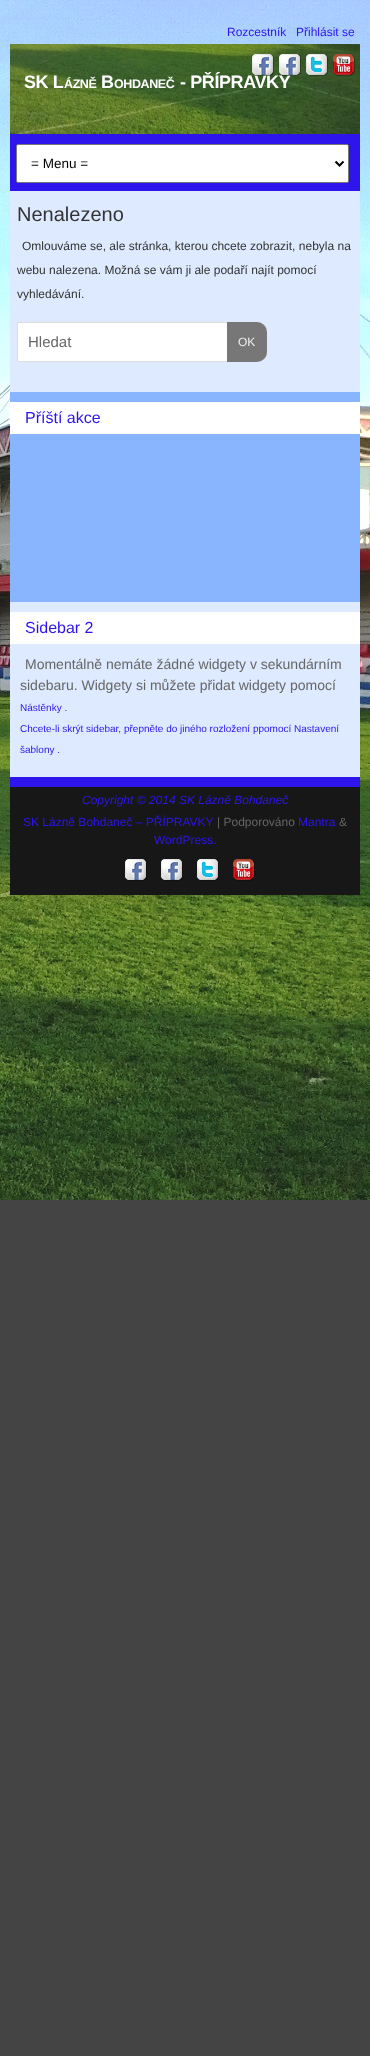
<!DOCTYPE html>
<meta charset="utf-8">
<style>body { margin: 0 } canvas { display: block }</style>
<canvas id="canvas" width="370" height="2056"></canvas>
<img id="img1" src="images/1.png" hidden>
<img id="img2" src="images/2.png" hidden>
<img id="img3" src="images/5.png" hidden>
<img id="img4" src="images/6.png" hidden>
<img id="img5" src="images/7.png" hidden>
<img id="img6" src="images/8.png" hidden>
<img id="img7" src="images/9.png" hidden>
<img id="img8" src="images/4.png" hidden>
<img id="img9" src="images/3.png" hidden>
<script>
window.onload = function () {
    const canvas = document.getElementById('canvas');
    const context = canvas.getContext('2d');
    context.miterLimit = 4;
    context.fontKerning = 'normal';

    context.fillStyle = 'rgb(68, 68, 68)';
    context.fillRect(0, 0, 370, 2056);
    context.drawImage(document.getElementById('img1'), 0, 0, 370, 1200);
    context.fillStyle = 'rgb(45, 21, 236)';
    context.fillRect(10, 134, 350, 57);
    context.drawImage(document.getElementById('img2'), 10, 44, 350, 90);
    context.drawImage(document.getElementById('img3'), 306, 54, 22, 22);
    context.drawImage(document.getElementById('img4'), 333, 54, 22, 22);
    context.fillStyle = 'rgb(255, 255, 255)';
    context.beginPath();
    context.roundRect(16.5, 144.5, 332, 38, 1.5);
    context.fill();
    context.strokeStyle = 'rgb(118, 118, 118)';
    context.stroke();
    context.beginPath();
    context.moveTo(335.5, 161.5);
    context.lineTo(339.5, 165.5);
    context.lineTo(343.5, 161.5);
    context.strokeStyle = 'rgb(0, 0, 0)';
    context.lineWidth = 2;
    context.stroke();
    context.fillStyle = 'rgb(222, 234, 255)';
    context.fillRect(10, 191, 350, 586);
    context.fillStyle = 'rgb(255, 255, 255)';
    context.beginPath();
    context.roundRect(17.5, 322.5, 249, 39, [0, 9.5, 9.5, 0]);
    context.fill();
    context.strokeStyle = 'rgb(221, 221, 221)';
    context.lineWidth = 1;
    context.stroke();
    context.fillStyle = 'rgb(119, 119, 119)';
    context.beginPath();
    context.roundRect(227, 322, 40, 40, [0, 10, 10, 0]);
    context.fill();
    context.fillStyle = 'rgb(136, 181, 254)';
    context.fillRect(10, 392, 350, 210);
    context.fillStyle = 'rgb(255, 255, 255)';
    context.fillRect(10, 402, 350, 32);
    context.fillRect(10, 612, 350, 32);
    context.fillStyle = 'rgb(45, 21, 236)';
    context.fillRect(10, 777, 350, 10);
    context.fillStyle = 'rgb(23, 23, 23)';
    context.fillRect(10, 787, 350, 108);
    context.drawImage(document.getElementById('img5'), 125, 859, 22, 22);
    context.drawImage(document.getElementById('img5'), 161, 859, 22, 22);
    context.drawImage(document.getElementById('img6'), 197, 859, 22, 22);
    context.drawImage(document.getElementById('img7'), 233, 859, 22, 22);
    context.font = '12px Liberation Sans';
    context.fillStyle = 'rgb(45, 21, 236)';
    context.fillText('Rozcestník', 227, 36);
    context.fillText('Přihlásit se', 296, 36);
    context.letterSpacing = '-0.4px';
    context.font = 'bold 18px Liberation Sans';
    context.fillStyle = 'rgb(255, 255, 255)';
    context.fillText('SK L', 24, 88);
    context.font = 'bold 12.5px Liberation Sans';
    context.fillText('ÁZNĚ', 64, 88);
    context.font = 'bold 18px Liberation Sans';
    context.fillText('B', 101, 88);
    context.font = 'bold 12.5px Liberation Sans';
    context.fillText('OHDANEČ', 114, 88);
    context.font = 'bold 18px Liberation Sans';
    context.fillText('- PŘÍPRAVKY', 180, 88);
    context.drawImage(document.getElementById('img8'), 279, 54, 22, 22);
    context.drawImage(document.getElementById('img9'), 252, 54, 22, 22);
    context.letterSpacing = '0px';
    context.font = '13.5px Liberation Sans';
    context.fillStyle = 'rgb(0, 0, 0)';
    context.fillText('= Menu =', 31, 168);
    context.font = '20px Liberation Sans';
    context.fillStyle = 'rgb(51, 51, 51)';
    context.fillText('Nenalezeno', 17, 221);
    context.font = '12px Liberation Sans';
    context.fillText('Omlouváme se, ale stránka, kterou chcete zobrazit, nebyla na', 22, 250);
    context.fillText('webu nalezena. Možná se vám ji ale podaří najít pomocí', 17, 274);
    context.fillText('vyhledávání.', 17, 298);
    context.font = '15px Liberation Sans';
    context.fillStyle = 'rgb(102, 102, 102)';
    context.fillText('Hledat', 28, 347);
    context.font = '12px Liberation Sans';
    context.fillStyle = 'rgb(238, 238, 238)';
    context.fillText('OK', 238, 346);
    context.font = '16px Liberation Sans';
    context.fillStyle = 'rgb(45, 21, 236)';
    context.fillText('Příští akce', 25, 423);
    context.fillText('Sidebar 2', 25, 633);
    context.font = '14px Liberation Sans';
    context.fillStyle = 'rgb(102, 102, 102)';
    context.fillText('Momentálně nemáte žádné widgety v sekundárním', 25, 669);
    context.fillText('sidebaru. Widgety si můžete přidat widgety pomocí', 20, 690);
    context.font = '10px Liberation Sans';
    context.fillStyle = 'rgb(45, 21, 236)';
    context.fillText('Nástěnky .', 20, 711);
    context.fillText('Chcete-li skrýt sidebar, přepněte do jiného rozložení ppomocí Nastavení', 20, 732);
    context.fillText('šablony .', 20, 753);
    context.font = 'italic 12px Liberation Sans';
    context.fillText('Copyright © 2014 SK Lázně Bohdaneč', 82, 804);
    context.font = '12px Liberation Sans';
    context.fillText('SK Lázně Bohdaneč – PŘÍPRAVKY', 23, 826);
    context.fillStyle = 'rgb(102, 102, 102)';
    context.fillText('| Podporováno', 217, 826);
    context.fillStyle = 'rgb(45, 21, 236)';
    context.fillText('Mantra', 298, 826);
    context.fillStyle = 'rgb(102, 102, 102)';
    context.fillText('&', 339, 826);
    context.fillStyle = 'rgb(45, 21, 236)';
    context.fillText('WordPress.', 154, 844);
};
</script>
